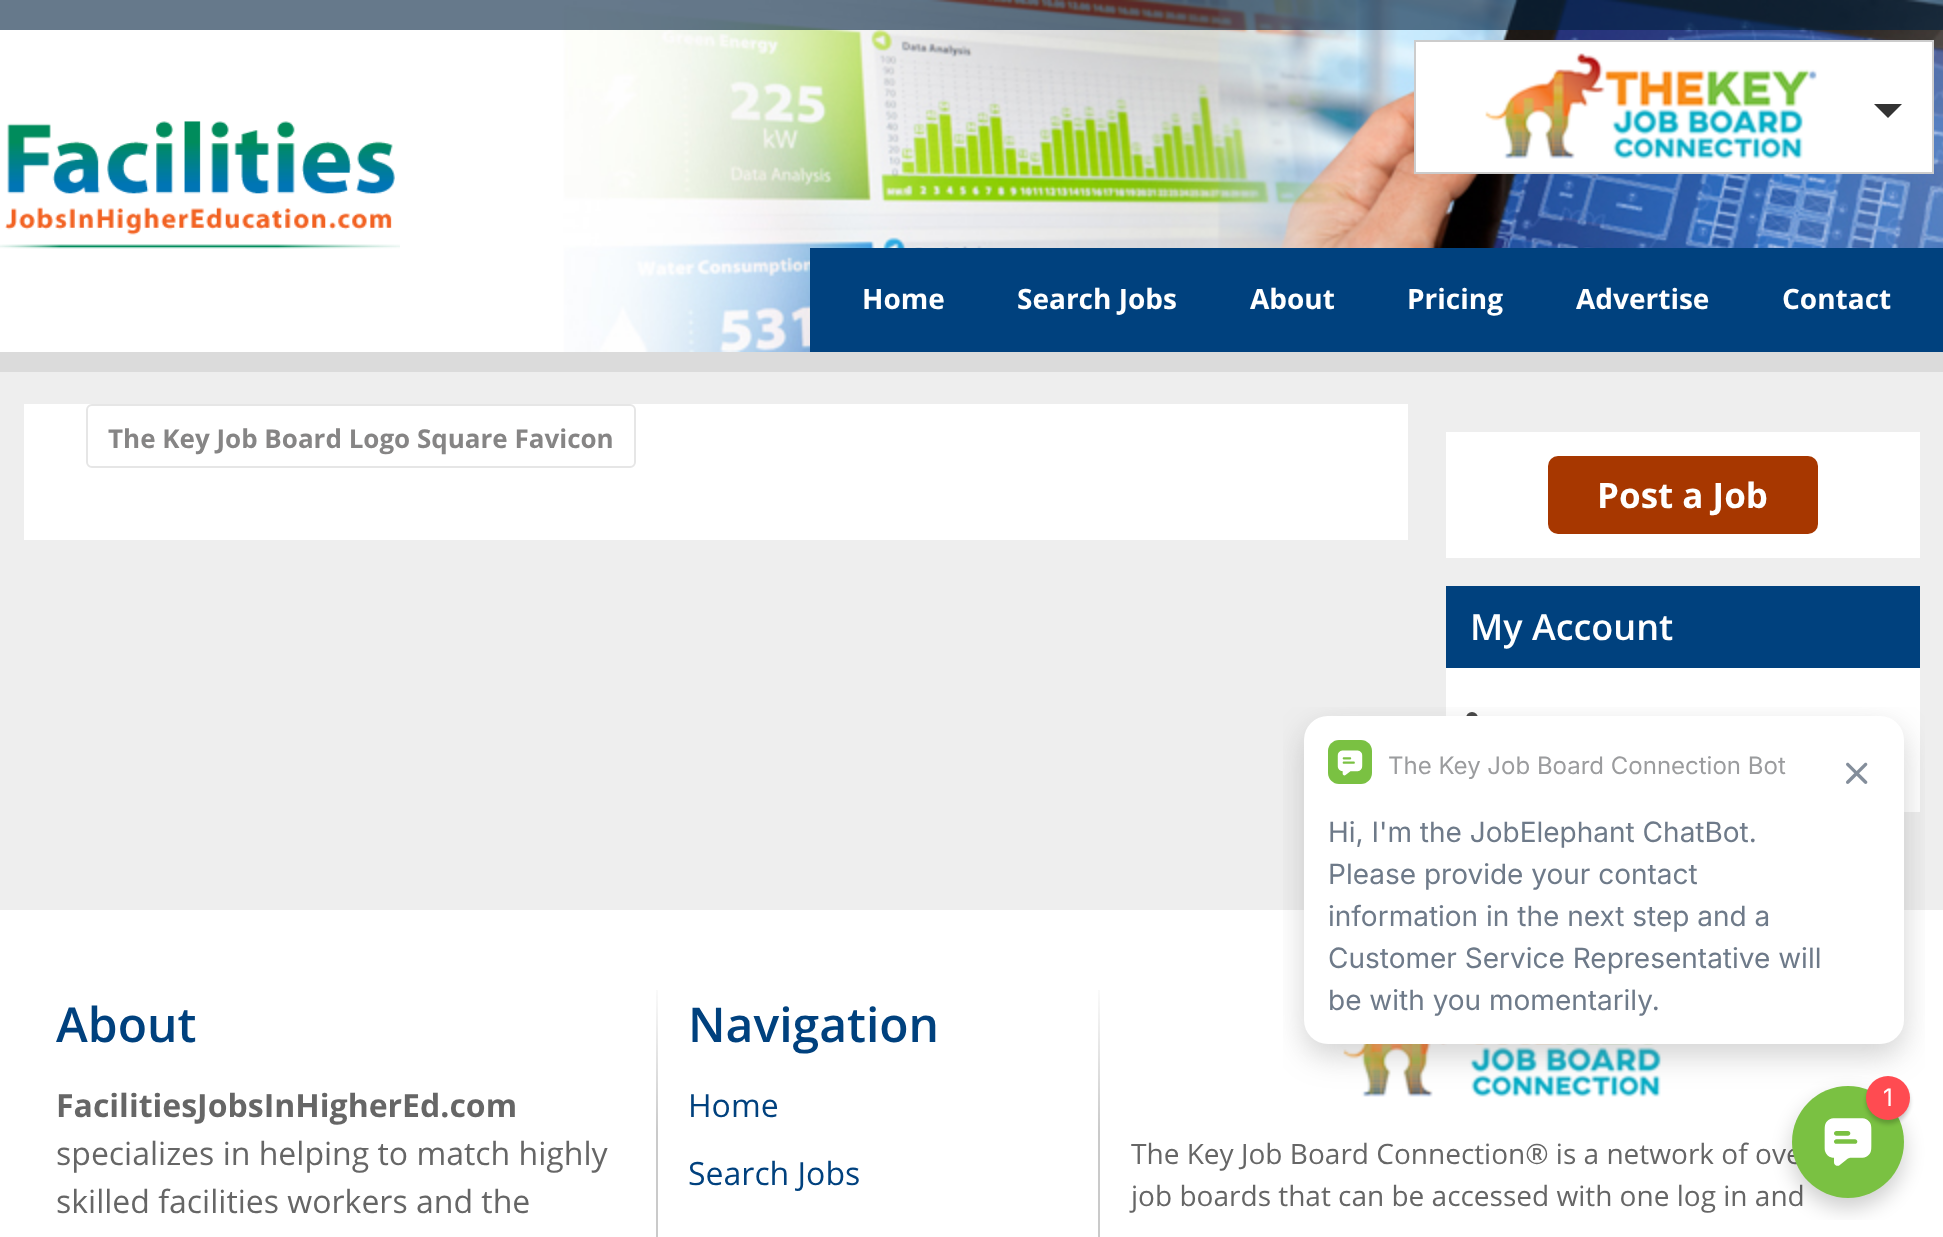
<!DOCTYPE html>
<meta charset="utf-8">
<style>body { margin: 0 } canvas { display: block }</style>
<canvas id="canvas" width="1943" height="1237"></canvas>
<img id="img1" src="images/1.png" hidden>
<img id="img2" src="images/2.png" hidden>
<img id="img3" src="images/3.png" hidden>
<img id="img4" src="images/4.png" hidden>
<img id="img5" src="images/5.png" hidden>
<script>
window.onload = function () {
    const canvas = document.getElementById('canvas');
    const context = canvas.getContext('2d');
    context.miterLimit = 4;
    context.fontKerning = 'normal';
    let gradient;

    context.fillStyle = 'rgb(238, 238, 238)';
    context.fillRect(0, 0, 1943, 1237);
    context.drawImage(document.getElementById('img1'), 0, 0, 1943, 352);
    context.fillStyle = 'rgb(219, 219, 219)';
    context.fillRect(0, 352, 1943, 20);
    context.fillStyle = 'rgba(0, 32, 62, 0.6)';
    context.fillRect(0, 0, 1943, 30);
    context.drawImage(document.getElementById('img2'), 0, 121, 400, 128);
    context.fillStyle = 'rgb(255, 255, 255)';
    context.beginPath();
    context.rect(1415, 41, 518, 132);
    context.fill();
    context.strokeStyle = 'rgb(204, 204, 204)';
    context.lineWidth = 2;
    context.stroke();
    context.drawImage(document.getElementById('img3'), 1485, 53, 332, 106);
    context.fillStyle = 'rgb(51, 51, 51)';
    context.beginPath();
    context.moveTo(1874, 104);
    context.lineTo(1902, 104);
    context.lineTo(1888, 118);
    context.closePath();
    context.fill();
    context.fillStyle = 'rgb(0, 65, 126)';
    context.fillRect(810, 248, 1133, 104);
    context.fillStyle = 'rgb(255, 255, 255)';
    context.fillRect(24, 404, 1384, 136);
    context.beginPath();
    context.roundRect(87, 405, 548, 62, 5);
    context.strokeStyle = 'rgb(230, 230, 230)';
    context.stroke();
    context.fillRect(1446, 432, 474, 126);
    context.fillStyle = 'rgb(167, 55, 0)';
    context.beginPath();
    context.roundRect(1548, 456, 270, 78, 10);
    context.fill();
    context.fillStyle = 'rgb(0, 65, 126)';
    context.fillRect(1446, 586, 474, 82);
    context.fillStyle = 'rgb(255, 255, 255)';
    context.fillRect(1446, 668, 474, 144);
    context.fillStyle = 'rgb(68, 68, 68)';
    context.beginPath();
    context.arc(1472, 718, 6, 0, 2 * Math.PI);
    context.fill();
    context.fillStyle = 'rgb(255, 255, 255)';
    context.fillRect(0, 910, 1943, 327);
    gradient = context.createLinearGradient(657, 990, 657, 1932);
    gradient.addColorStop(0, 'rgb(250, 250, 250)');
    gradient.addColorStop(0.15, 'rgb(202, 202, 202)');
    gradient.addColorStop(0.85, 'rgb(202, 202, 202)');
    gradient.addColorStop(1, 'rgb(250, 250, 250)');
    context.fillStyle = gradient;
    context.fillRect(656, 990, 2, 247);
    gradient = context.createLinearGradient(1099, 990, 1099, 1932);
    gradient.addColorStop(0, 'rgb(250, 250, 250)');
    gradient.addColorStop(0.15, 'rgb(202, 202, 202)');
    gradient.addColorStop(0.85, 'rgb(202, 202, 202)');
    gradient.addColorStop(1, 'rgb(250, 250, 250)');
    context.fillStyle = gradient;
    context.fillRect(1098, 990, 2, 247);
    context.drawImage(document.getElementById('img4'), 1343, 1044, 332, 53);
    context.font = 'bold 28px Open Sans';
    context.fillStyle = 'rgb(255, 255, 255)';
    context.fillText('Home', 862, 309);
    context.fillText('Search Jobs', 1017, 309);
    context.fillText('About', 1250, 309);
    context.fillText('Pricing', 1407, 309);
    context.fillText('Advertise', 1576, 309);
    context.fillText('Contact', 1782, 309);
    context.font = 'bold 26px Open Sans';
    context.fillStyle = 'rgb(134, 133, 133)';
    context.fillText('The Key Job Board Logo Square Favicon', 108, 448);
    context.font = 'bold 35px Open Sans';
    context.fillStyle = 'rgb(255, 255, 255)';
    context.fillText('Post a Job', 1597, 508);
    context.font = '600 36px Open Sans';
    context.fillText('My Account', 1470, 640);
    context.font = '600 48px Open Sans';
    context.fillStyle = 'rgb(0, 65, 126)';
    context.fillText('About', 56, 1042);
    context.font = 'bold 32px Open Sans';
    context.fillStyle = 'rgb(102, 102, 102)';
    context.fillText('FacilitiesJobsInHigherEd.com', 56, 1117);
    context.font = '32px Open Sans';
    context.fillText('specializes in helping to match highly', 56, 1165);
    context.fillText('skilled facilities workers and the', 56, 1213);
    context.font = '600 48px Open Sans';
    context.fillStyle = 'rgb(0, 65, 126)';
    context.fillText('Navigation', 688, 1042);
    context.font = '32px Open Sans';
    context.fillText('Home', 688, 1117);
    context.fillText('Search Jobs', 688, 1185);
    context.font = '28px Open Sans';
    context.fillStyle = 'rgb(102, 102, 102)';
    context.fillText('The Key Job Board Connection® is a network of ove', 1131, 1164);
    context.fillText('job boards that can be accessed with one log in and', 1131, 1206);
    context.drawImage(document.getElementById('img5'), 1283, 707, 642, 513);
};
</script>
